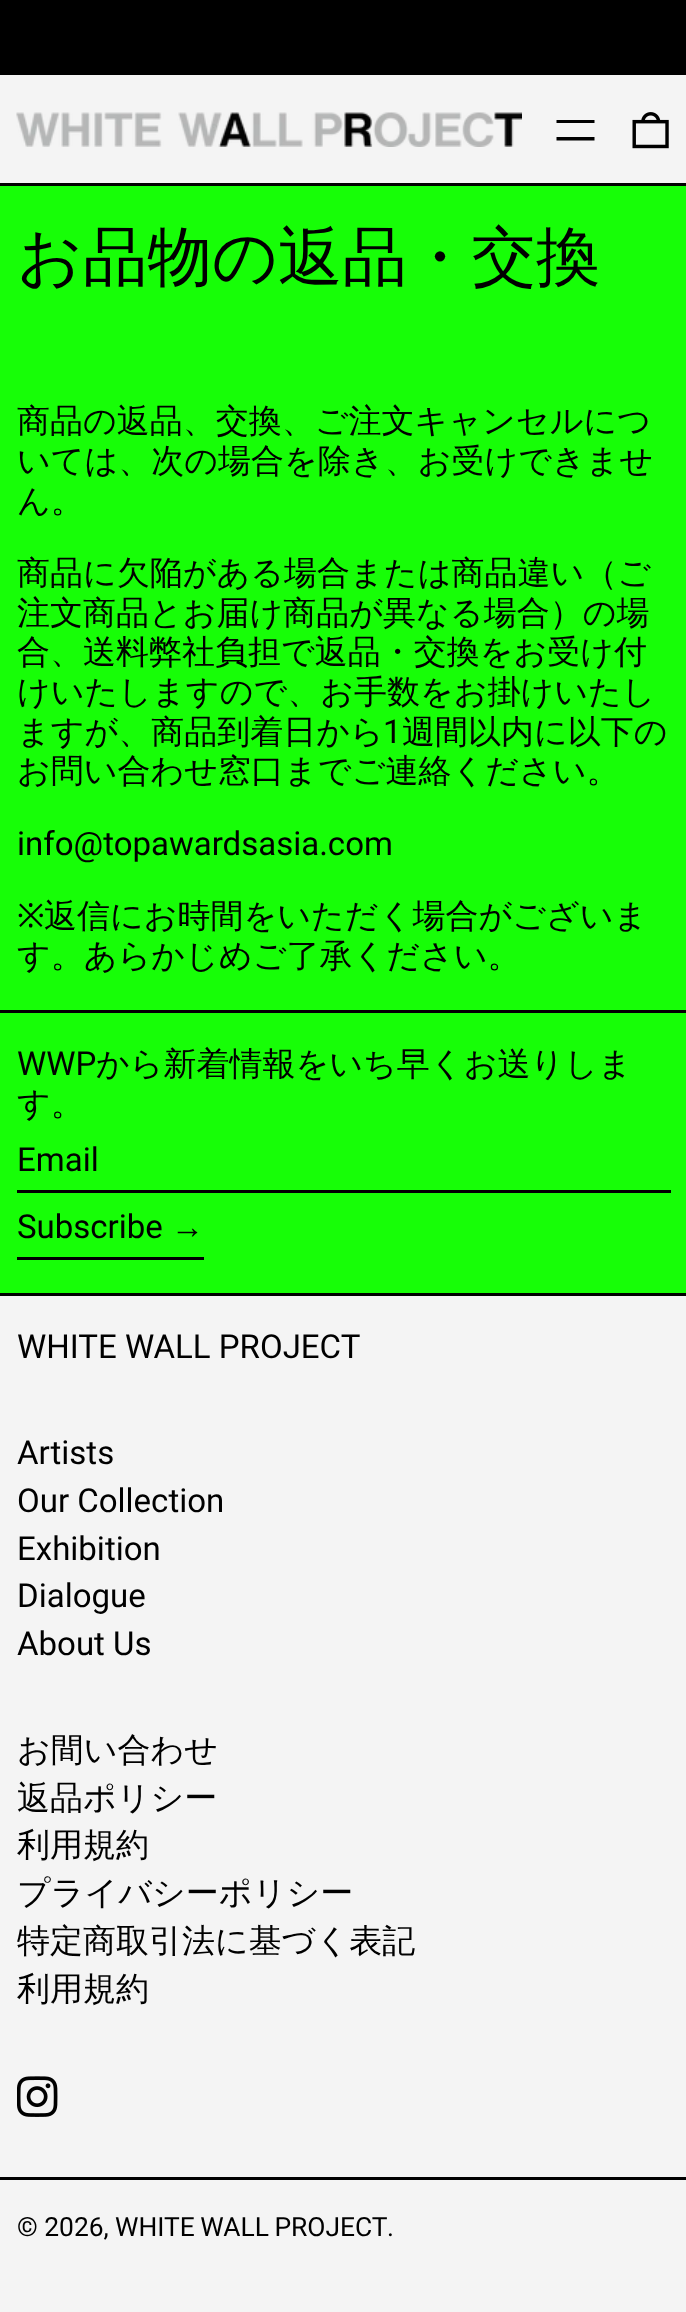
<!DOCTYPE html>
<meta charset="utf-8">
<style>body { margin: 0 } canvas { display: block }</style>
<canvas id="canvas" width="686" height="2312"></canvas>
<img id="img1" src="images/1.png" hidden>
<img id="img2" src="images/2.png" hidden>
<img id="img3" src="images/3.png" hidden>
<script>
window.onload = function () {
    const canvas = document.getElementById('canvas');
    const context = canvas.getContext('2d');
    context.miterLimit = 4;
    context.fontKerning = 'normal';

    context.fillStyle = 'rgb(244, 244, 244)';
    context.fillRect(0, 0, 686, 2312);
    context.fillStyle = 'rgb(0, 0, 0)';
    context.fillRect(0, 0, 686, 75);
    context.drawImage(document.getElementById('img1'), 16, 112, 506, 35);
    context.beginPath();
    context.moveTo(594.5, 137);
    context.lineTo(594.5, 140.5);
    context.lineTo(556.5, 140.5);
    context.lineTo(556.5, 137);
    context.closePath();
    context.moveTo(594.5, 120);
    context.lineTo(594.5, 123);
    context.lineTo(556.5, 123);
    context.lineTo(556.5, 120);
    context.closePath();
    context.fill('evenodd');
    context.drawImage(document.getElementById('img2'), 632, 112, 37, 37);
    context.fillStyle = 'rgb(23, 254, 7)';
    context.fillRect(0, 186, 686, 824);
    context.fillStyle = 'rgb(0, 0, 0)';
    context.fillRect(0, 183, 686, 3);
    context.fillStyle = 'rgb(23, 254, 7)';
    context.fillRect(0, 1013, 686, 280);
    context.fillStyle = 'rgb(0, 0, 0)';
    context.fillRect(0, 1010, 686, 3);
    context.fillRect(17, 1190, 654, 3);
    context.fillRect(17, 1257, 187, 3);
    context.fillRect(0, 1293, 686, 3);
    context.drawImage(document.getElementById('img3'), 17, 2076, 41, 41);
    context.fillRect(0, 2177, 686, 3);
    context.font = '500 64.5px WenQuanYi Zen Hei';
    context.fillText('お品物の返品・交換', 17, 279);
    context.font = '500 33px WenQuanYi Zen Hei';
    context.fillText('商品の返品、交換、ご注文キャンセルにつ', 17, 432);
    context.fillText('いては、次の場合を除き、お受けできませ', 17, 472);
    context.fillText('ん。', 17, 512);
    context.fillText('商品に欠陥がある場合または商品違い（ご', 17, 584);
    context.fillText('注文商品とお届け商品が異なる場合）の場', 17, 624);
    context.fillText('合、送料弊社負担で返品・交換をお受け付', 17, 663);
    context.fillText('けいたしますので、お手数をお掛けいたし', 17, 703);
    context.fillText('ますが、商品到着日から', 17, 743);
    context.font = '33px Roboto';
    context.fillText('1', 383, 743);
    context.font = '500 33px WenQuanYi Zen Hei';
    context.fillText('週間以内に以下の', 402, 743);
    context.fillText('お問い合わせ窓口までご連絡ください。', 17, 782);
    context.font = '33px Roboto';
    context.fillText('info@topawardsasia.com', 17, 855);
    context.font = '33px Noto Sans';
    context.fillText('※', 17, 927);
    context.font = '500 33px WenQuanYi Zen Hei';
    context.fillText('返信にお時間をいただく場合がございま', 44, 927);
    context.fillText('す。あらかじめご了承ください。', 17, 967);
    context.font = '33px Roboto';
    context.fillText('WWP', 17, 1075);
    context.font = '500 33px WenQuanYi Zen Hei';
    context.fillText('から新着情報をいち早くお送りしま', 96, 1075);
    context.fillText('す。', 17, 1115);
    context.font = '33px Roboto';
    context.fillText('Email', 17, 1171);
    context.fillText('Subscribe', 17, 1238);
    context.font = '33px Liberation Sans';
    context.fillText('→', 171, 1238);
    context.font = '33px Roboto';
    context.fillText('WHITE WALL PROJECT', 17, 1358);
    context.fillText('Artists', 17, 1464);
    context.fillText('Our Collection', 17, 1512);
    context.fillText('Exhibition', 17, 1560);
    context.fillText('Dialogue', 17, 1607);
    context.fillText('About Us', 17, 1655);
    context.font = '500 33px WenQuanYi Zen Hei';
    context.fillText('お間い合わせ', 17, 1761);
    context.fillText('返品ポリシー', 17, 1809);
    context.fillText('利用規約', 17, 1856);
    context.fillText('プライバシーポリシー', 17, 1904);
    context.fillText('特定商取引法に基づく表記', 17, 1952);
    context.fillText('利用規約', 17, 2000);
    context.font = '26.4px Roboto';
    context.fillText('© 2026,', 17, 2236);
    context.wordSpacing = '-1px';
    context.fillText('WHITE WALL PROJECT', 115, 2236);
    context.wordSpacing = '0px';
    context.fillText('.', 387, 2236);
};
</script>
